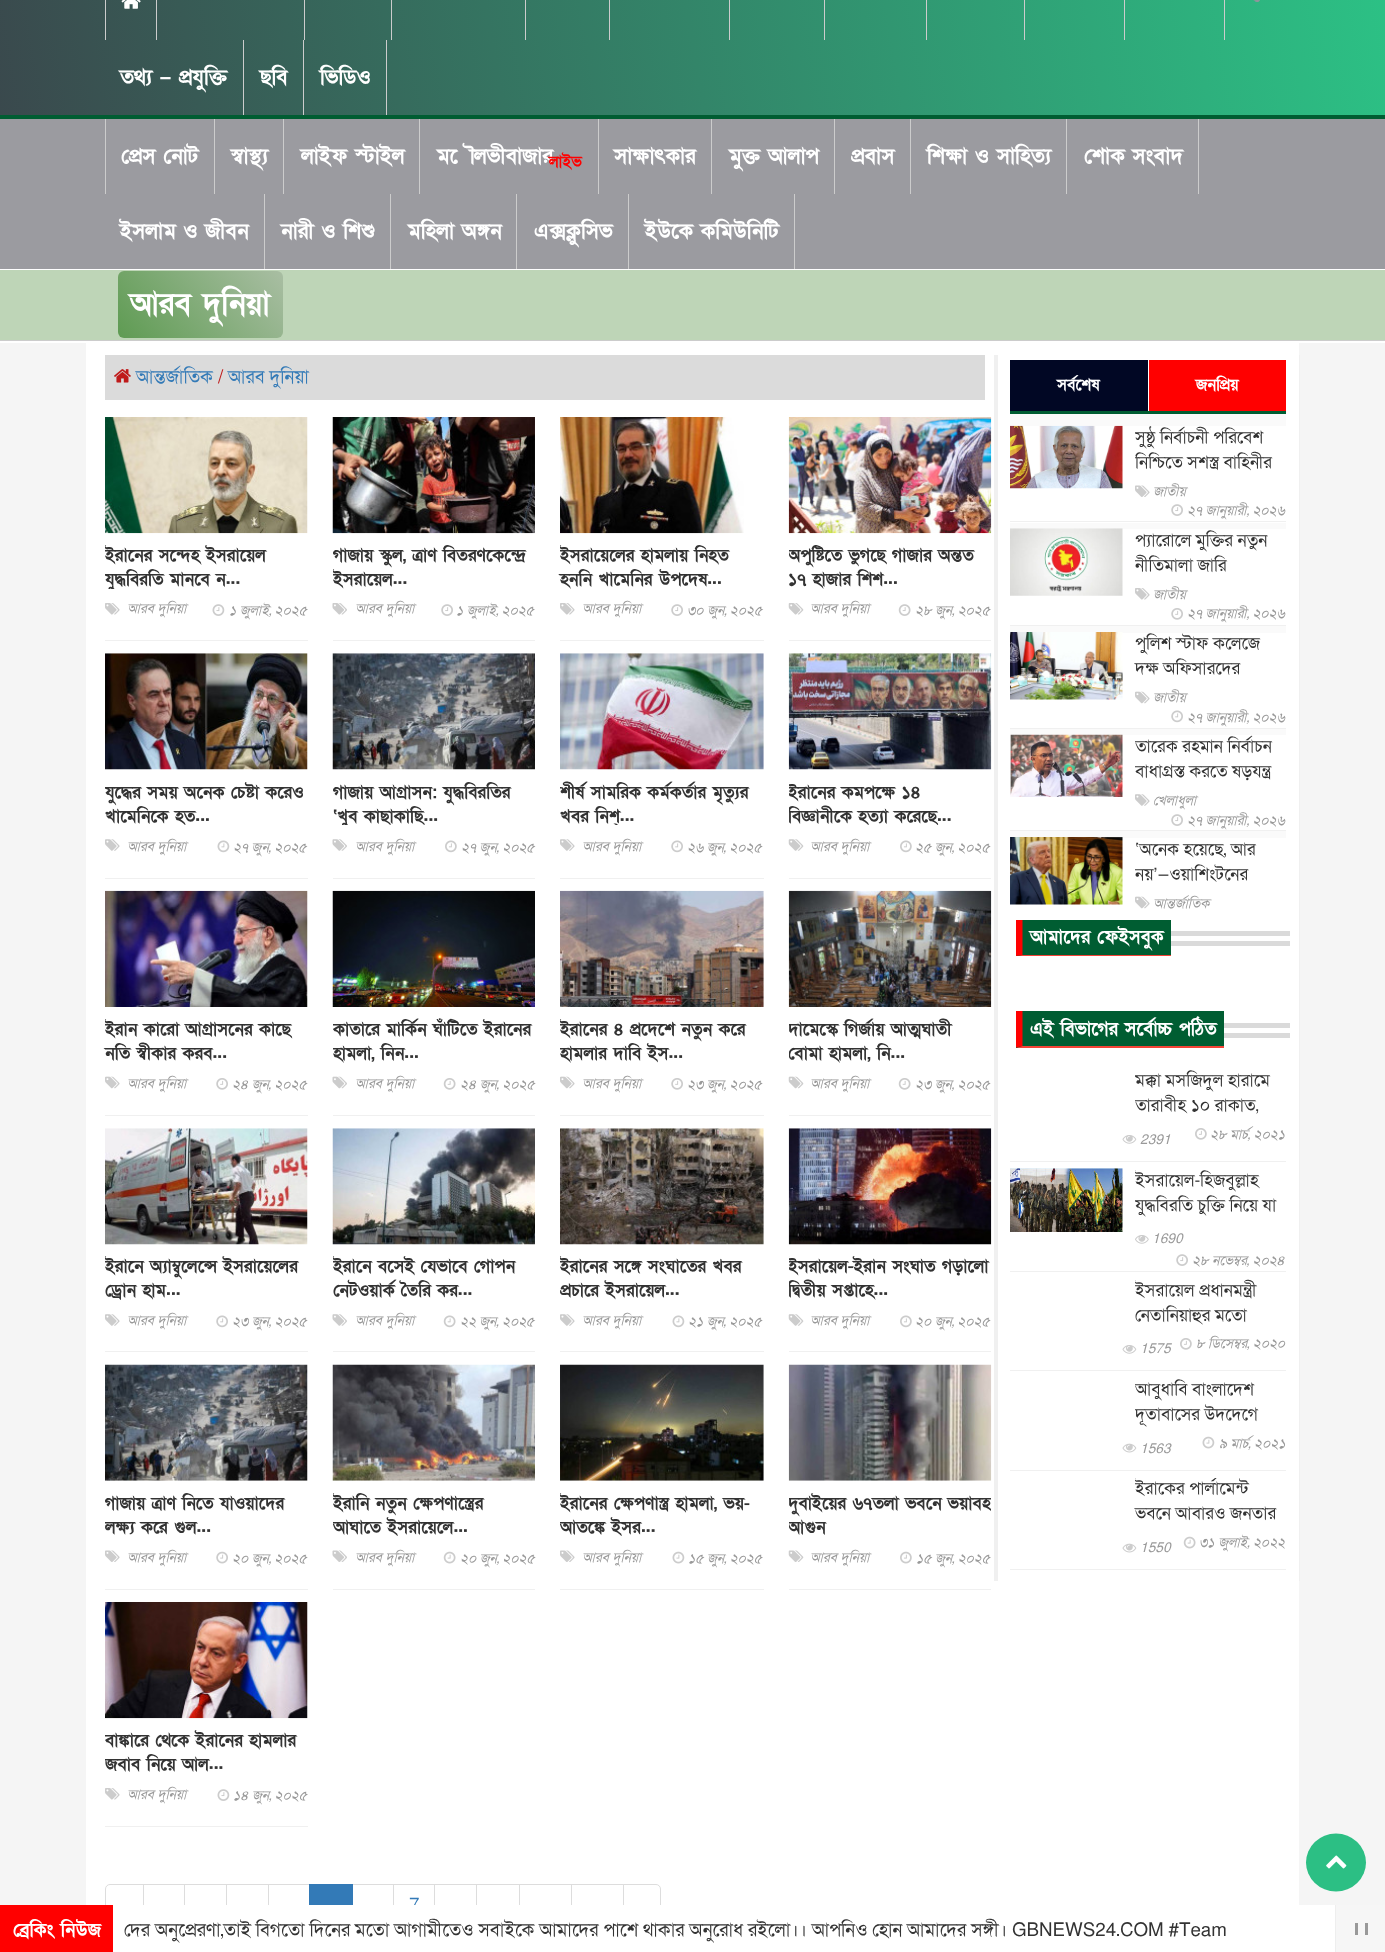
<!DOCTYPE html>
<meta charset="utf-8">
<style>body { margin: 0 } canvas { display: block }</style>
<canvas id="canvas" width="1385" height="1952"></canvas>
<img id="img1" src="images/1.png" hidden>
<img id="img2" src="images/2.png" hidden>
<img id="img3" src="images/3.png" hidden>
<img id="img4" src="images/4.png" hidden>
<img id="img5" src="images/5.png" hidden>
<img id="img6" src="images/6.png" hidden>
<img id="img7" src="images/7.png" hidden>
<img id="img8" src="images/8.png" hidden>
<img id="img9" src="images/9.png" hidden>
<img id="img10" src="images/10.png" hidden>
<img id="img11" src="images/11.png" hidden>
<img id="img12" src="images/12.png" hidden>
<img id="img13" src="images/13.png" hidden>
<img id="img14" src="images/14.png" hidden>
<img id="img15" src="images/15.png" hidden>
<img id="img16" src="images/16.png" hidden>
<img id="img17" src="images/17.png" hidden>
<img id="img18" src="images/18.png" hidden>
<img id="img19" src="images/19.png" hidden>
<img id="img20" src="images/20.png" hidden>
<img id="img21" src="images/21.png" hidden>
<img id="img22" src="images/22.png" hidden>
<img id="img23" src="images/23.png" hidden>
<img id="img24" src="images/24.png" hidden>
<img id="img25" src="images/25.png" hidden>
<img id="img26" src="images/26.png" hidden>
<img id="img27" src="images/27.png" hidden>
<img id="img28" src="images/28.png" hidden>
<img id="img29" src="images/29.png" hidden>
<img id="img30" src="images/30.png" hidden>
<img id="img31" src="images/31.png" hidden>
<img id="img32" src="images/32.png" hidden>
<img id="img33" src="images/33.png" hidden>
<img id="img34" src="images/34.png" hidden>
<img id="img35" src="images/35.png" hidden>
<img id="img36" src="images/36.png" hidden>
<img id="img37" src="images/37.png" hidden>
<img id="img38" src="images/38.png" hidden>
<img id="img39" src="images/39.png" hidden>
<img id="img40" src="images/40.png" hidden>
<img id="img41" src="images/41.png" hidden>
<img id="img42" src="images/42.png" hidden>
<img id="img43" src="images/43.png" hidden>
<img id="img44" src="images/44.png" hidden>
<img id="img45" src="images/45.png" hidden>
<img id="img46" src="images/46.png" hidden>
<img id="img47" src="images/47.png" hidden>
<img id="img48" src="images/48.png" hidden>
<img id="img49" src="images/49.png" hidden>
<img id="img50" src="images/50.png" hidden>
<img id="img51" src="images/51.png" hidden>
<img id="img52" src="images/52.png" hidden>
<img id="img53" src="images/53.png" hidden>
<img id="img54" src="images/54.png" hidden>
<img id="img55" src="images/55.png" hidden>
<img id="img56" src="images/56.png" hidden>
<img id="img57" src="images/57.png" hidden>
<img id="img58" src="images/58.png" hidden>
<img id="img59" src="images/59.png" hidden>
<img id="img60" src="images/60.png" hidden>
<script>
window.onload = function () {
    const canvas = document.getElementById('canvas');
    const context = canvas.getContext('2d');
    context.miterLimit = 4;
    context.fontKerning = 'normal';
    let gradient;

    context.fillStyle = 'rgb(255, 255, 255)';
    context.fillRect(0, 0, 1385, 1952);
    gradient = context.createLinearGradient(7.7, 163, 1377, -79);
    gradient.addColorStop(0, 'rgb(58, 73, 77)');
    gradient.addColorStop(1, 'rgb(44, 193, 133)');
    context.fillStyle = gradient;
    context.fillRect(0, 0, 1385, 115);
    context.fillStyle = 'rgb(0, 93, 50)';
    context.fillRect(0, 115, 1385, 4);
    context.fillStyle = 'rgb(204, 204, 204)';
    context.fillRect(156, 0, 1, 40);
    context.fillRect(105, 0, 1, 40);
    context.drawImage(document.getElementById('img1'), 121, 0, 20, 9);
    context.fillRect(304, 0, 1, 40);
    context.fillRect(391, 0, 1, 40);
    context.fillRect(525, 0, 1, 40);
    context.fillRect(609, 0, 1, 40);
    context.fillRect(729, 0, 1, 40);
    context.fillRect(824, 0, 1, 40);
    context.fillRect(926, 0, 1, 40);
    context.fillRect(1024, 0, 1, 40);
    context.fillRect(1124, 0, 1, 40);
    context.fillRect(1224, 0, 1, 40);
    context.drawImage(document.getElementById('img2'), 1253, 0, 7, 2);
    context.fillRect(243, 40, 1, 75);
    context.fillRect(303, 40, 1, 75);
    context.fillRect(386, 40, 1, 75);
    context.fillStyle = 'rgb(155, 155, 160)';
    context.fillRect(0, 119, 1385, 150);
    context.fillStyle = 'rgb(204, 204, 204)';
    context.fillRect(214, 119, 1, 75);
    context.fillRect(105, 119, 1, 75);
    context.fillRect(283, 119, 1, 75);
    context.fillRect(419, 119, 1, 75);
    context.fillRect(598, 119, 1, 75);
    context.fillRect(711, 119, 1, 75);
    context.fillRect(834, 119, 1, 75);
    context.fillRect(910, 119, 1, 75);
    context.fillRect(1066, 119, 1, 75);
    context.fillRect(1198, 119, 1, 75);
    context.fillRect(264, 194, 1, 75);
    context.fillRect(390, 194, 1, 75);
    context.fillRect(516, 194, 1, 75);
    context.fillRect(628, 194, 1, 75);
    context.fillRect(794, 194, 1, 75);
    context.fillStyle = 'rgb(190, 213, 183)';
    context.fillRect(0, 270, 1385, 70);
    context.fillStyle = 'rgb(204, 204, 204)';
    context.fillRect(0, 340, 1385, 1);
    gradient = context.createLinearGradient(135, 359, 265, 250);
    gradient.addColorStop(0, 'rgb(94, 155, 82)');
    gradient.addColorStop(1, 'rgb(169, 190, 163)');
    context.fillStyle = gradient;
    context.beginPath();
    context.roundRect(118, 271, 165, 67, 6);
    context.fill();
    context.fillStyle = 'rgb(245, 245, 245)';
    context.fillRect(0, 343, 1385, 1562);
    context.fillStyle = 'rgb(255, 255, 255)';
    context.fillRect(86, 343, 1213, 1562);
    context.fillStyle = 'rgb(219, 219, 219)';
    context.fillRect(105, 355, 880, 45);
    context.drawImage(document.getElementById('img3'), 114, 369, 17, 14);
    context.drawImage(document.getElementById('img4'), 105, 417, 203, 117);
    context.fillStyle = 'rgb(240, 240, 240)';
    context.fillRect(105, 640, 203, 1);
    context.drawImage(document.getElementById('img5'), 105, 603, 15, 12);
    context.drawImage(document.getElementById('img6'), 212, 604, 13, 12);
    context.drawImage(document.getElementById('img7'), 332, 417, 203, 117);
    context.fillRect(333, 640, 202, 1);
    context.drawImage(document.getElementById('img8'), 332, 603, 15, 12);
    context.drawImage(document.getElementById('img9'), 441, 604, 12, 12);
    context.drawImage(document.getElementById('img10'), 560, 417, 184, 117);
    context.fillRect(560, 640, 204, 1);
    context.drawImage(document.getElementById('img5'), 560, 603, 15, 12);
    context.drawImage(document.getElementById('img9'), 671, 604, 12, 12);
    context.drawImage(document.getElementById('img11'), 788, 417, 204, 117);
    context.fillRect(789, 640, 202, 1);
    context.drawImage(document.getElementById('img12'), 788, 603, 16, 12);
    context.drawImage(document.getElementById('img13'), 898, 604, 13, 12);
    context.drawImage(document.getElementById('img14'), 105, 653, 203, 117);
    context.fillRect(105, 878, 203, 1);
    context.drawImage(document.getElementById('img15'), 105, 839, 15, 12);
    context.drawImage(document.getElementById('img16'), 217, 840, 13, 13);
    context.drawImage(document.getElementById('img17'), 332, 653, 203, 117);
    context.fillRect(333, 878, 202, 1);
    context.drawImage(document.getElementById('img18'), 332, 839, 15, 12);
    context.drawImage(document.getElementById('img19'), 445, 840, 12, 13);
    context.drawImage(document.getElementById('img20'), 560, 653, 204, 117);
    context.fillRect(560, 878, 204, 1);
    context.drawImage(document.getElementById('img15'), 560, 839, 15, 12);
    context.drawImage(document.getElementById('img21'), 671, 840, 12, 13);
    context.drawImage(document.getElementById('img22'), 788, 653, 204, 117);
    context.fillRect(789, 878, 202, 1);
    context.drawImage(document.getElementById('img23'), 788, 839, 16, 12);
    context.drawImage(document.getElementById('img19'), 900, 840, 12, 13);
    context.drawImage(document.getElementById('img24'), 105, 890, 203, 117);
    context.fillRect(105, 1115, 203, 1);
    context.drawImage(document.getElementById('img25'), 105, 1076, 15, 13);
    context.drawImage(document.getElementById('img26'), 216, 1078, 12, 12);
    context.drawImage(document.getElementById('img27'), 332, 890, 203, 117);
    context.fillRect(333, 1115, 202, 1);
    context.drawImage(document.getElementById('img28'), 332, 1076, 15, 13);
    context.drawImage(document.getElementById('img29'), 443, 1078, 13, 12);
    context.drawImage(document.getElementById('img30'), 560, 890, 204, 117);
    context.fillRect(560, 1115, 204, 1);
    context.drawImage(document.getElementById('img25'), 560, 1076, 15, 13);
    context.drawImage(document.getElementById('img26'), 671, 1078, 12, 12);
    context.drawImage(document.getElementById('img31'), 788, 890, 204, 117);
    context.fillRect(789, 1115, 202, 1);
    context.drawImage(document.getElementById('img32'), 788, 1076, 16, 13);
    context.drawImage(document.getElementById('img29'), 898, 1078, 13, 12);
    context.drawImage(document.getElementById('img33'), 105, 1128, 203, 117);
    context.fillRect(105, 1351, 203, 1);
    context.drawImage(document.getElementById('img15'), 105, 1314, 15, 12);
    context.drawImage(document.getElementById('img21'), 216, 1315, 12, 13);
    context.drawImage(document.getElementById('img34'), 332, 1128, 203, 117);
    context.fillRect(333, 1351, 202, 1);
    context.drawImage(document.getElementById('img18'), 332, 1314, 15, 12);
    context.drawImage(document.getElementById('img35'), 443, 1315, 13, 13);
    context.drawImage(document.getElementById('img36'), 560, 1128, 204, 117);
    context.fillRect(560, 1351, 204, 1);
    context.drawImage(document.getElementById('img15'), 560, 1314, 15, 12);
    context.drawImage(document.getElementById('img16'), 672, 1315, 13, 13);
    context.drawImage(document.getElementById('img37'), 788, 1128, 204, 117);
    context.fillRect(789, 1351, 202, 1);
    context.drawImage(document.getElementById('img23'), 788, 1314, 16, 12);
    context.drawImage(document.getElementById('img19'), 900, 1315, 12, 13);
    context.drawImage(document.getElementById('img38'), 105, 1364, 203, 117);
    context.fillRect(105, 1589, 203, 1);
    context.drawImage(document.getElementById('img39'), 105, 1550, 15, 12);
    context.drawImage(document.getElementById('img40'), 216, 1551, 12, 13);
    context.drawImage(document.getElementById('img41'), 332, 1364, 203, 117);
    context.fillRect(333, 1589, 202, 1);
    context.drawImage(document.getElementById('img42'), 332, 1550, 15, 12);
    context.drawImage(document.getElementById('img43'), 443, 1551, 13, 13);
    context.drawImage(document.getElementById('img44'), 560, 1364, 204, 117);
    context.fillRect(560, 1589, 204, 1);
    context.drawImage(document.getElementById('img39'), 560, 1550, 15, 12);
    context.drawImage(document.getElementById('img45'), 672, 1551, 13, 13);
    context.drawImage(document.getElementById('img46'), 788, 1364, 204, 117);
    context.fillRect(789, 1589, 202, 1);
    context.drawImage(document.getElementById('img47'), 788, 1550, 16, 12);
    context.drawImage(document.getElementById('img48'), 900, 1551, 12, 13);
    context.drawImage(document.getElementById('img49'), 105, 1602, 203, 117);
    context.fillRect(105, 1826, 203, 1);
    context.drawImage(document.getElementById('img5'), 105, 1788, 15, 12);
    context.drawImage(document.getElementById('img6'), 217, 1789, 13, 12);
    context.beginPath();
    context.roundRect(105.5, 1884.5, 38, 43, [4.5, 0, 0, 4.5]);
    context.strokeStyle = 'rgb(221, 221, 221)';
    context.stroke();
    context.strokeRect(143.5, 1884.5, 41, 43);
    context.strokeRect(184.5, 1884.5, 43, 43);
    context.fillStyle = 'rgb(255, 255, 255)';
    context.fillRect(227, 1885, 1, 20);
    context.strokeRect(226.5, 1884.5, 42, 43);
    context.strokeRect(268.5, 1884.5, 41, 43);
    context.strokeRect(351.5, 1884.5, 42, 43);
    context.fillStyle = 'rgb(51, 122, 183)';
    context.fillRect(309, 1884, 44, 21);
    context.strokeRect(393.5, 1884.5, 41, 43);
    context.strokeRect(434.5, 1884.5, 43, 43);
    context.fillStyle = 'rgb(255, 255, 255)';
    context.fillRect(477, 1885, 1, 20);
    context.strokeRect(476.5, 1884.5, 43, 43);
    context.strokeRect(519.5, 1884.5, 53, 43);
    context.fillRect(572, 1885, 1, 20);
    context.strokeRect(571.5, 1884.5, 52, 43);
    context.beginPath();
    context.roundRect(623.5, 1884.5, 37, 43, [0, 4.5, 4.5, 0]);
    context.fill();
    context.stroke();
    context.fillStyle = 'rgb(240, 240, 240)';
    context.fillRect(994, 355, 4, 1226);
    context.fillStyle = 'rgb(0, 93, 50)';
    context.fillRect(1010, 411, 276, 3);
    context.fillStyle = 'rgb(1, 7, 36)';
    context.fillRect(1010, 360, 138, 51);
    context.fillStyle = 'rgb(255, 0, 0)';
    context.fillRect(1149, 360, 137, 51);
    context.fillStyle = 'rgb(250, 250, 250)';
    context.fillRect(1010, 414, 276, 424);
    context.fillStyle = 'rgb(255, 255, 255)';
    context.fillRect(1010, 426, 276, 97);
    context.fillStyle = 'rgb(240, 240, 240)';
    context.fillRect(1010, 521, 276, 1);
    context.drawImage(document.getElementById('img50'), 1010, 425, 113, 64);
    context.drawImage(document.getElementById('img39'), 1135, 485, 15, 12);
    context.drawImage(document.getElementById('img9'), 1171, 504, 12, 12);
    context.fillStyle = 'rgb(255, 255, 255)';
    context.fillRect(1010, 529, 276, 96);
    context.fillStyle = 'rgb(240, 240, 240)';
    context.fillRect(1010, 625, 276, 1);
    context.drawImage(document.getElementById('img51'), 1010, 528, 113, 68);
    context.drawImage(document.getElementById('img5'), 1135, 588, 15, 12);
    context.drawImage(document.getElementById('img26'), 1171, 608, 12, 12);
    context.fillStyle = 'rgb(255, 255, 255)';
    context.fillRect(1010, 633, 276, 95);
    context.fillStyle = 'rgb(240, 240, 240)';
    context.fillRect(1010, 728, 276, 1);
    context.drawImage(document.getElementById('img52'), 1010, 632, 113, 68);
    context.drawImage(document.getElementById('img25'), 1135, 691, 15, 13);
    context.drawImage(document.getElementById('img21'), 1171, 710, 12, 13);
    context.fillStyle = 'rgb(255, 255, 255)';
    context.fillRect(1010, 735, 276, 95);
    context.fillStyle = 'rgb(240, 240, 240)';
    context.fillRect(1010, 830, 276, 1);
    context.drawImage(document.getElementById('img53'), 1010, 734, 113, 63);
    context.drawImage(document.getElementById('img15'), 1135, 794, 15, 12);
    context.drawImage(document.getElementById('img9'), 1171, 814, 12, 12);
    context.drawImage(document.getElementById('img54'), 1010, 837, 113, 68);
    context.drawImage(document.getElementById('img25'), 1135, 896, 15, 13);
    context.fillStyle = 'rgb(218, 218, 218)';
    context.fillRect(1171, 931, 119, 5);
    context.fillRect(1171, 941, 119, 5);
    context.fillStyle = 'rgb(0, 93, 50)';
    context.fillRect(1016, 920, 155, 36);
    context.fillStyle = 'rgb(244, 67, 54)';
    context.beginPath();
    context.moveTo(1171, 956);
    context.lineTo(1016, 956);
    context.lineTo(1022, 955);
    context.lineTo(1171, 955);
    context.closePath();
    context.fill();
    context.fillStyle = 'rgb(255, 0, 0)';
    context.beginPath();
    context.moveTo(1016, 956);
    context.lineTo(1016, 920);
    context.lineTo(1022.5, 920);
    context.lineTo(1022.5, 955);
    context.closePath();
    context.fill();
    context.fillStyle = 'rgb(218, 218, 218)';
    context.fillRect(1224, 1023, 66, 5);
    context.fillRect(1224, 1033, 66, 5);
    context.fillStyle = 'rgb(0, 93, 50)';
    context.fillRect(1016, 1011, 208, 37);
    context.fillStyle = 'rgb(244, 67, 54)';
    context.beginPath();
    context.moveTo(1224, 1048);
    context.lineTo(1016, 1048);
    context.lineTo(1022, 1046);
    context.lineTo(1224, 1046);
    context.closePath();
    context.fill();
    context.fillStyle = 'rgb(255, 0, 0)';
    context.beginPath();
    context.moveTo(1016, 1047.5);
    context.lineTo(1016, 1011);
    context.lineTo(1022.5, 1011);
    context.lineTo(1022.5, 1046);
    context.closePath();
    context.fill();
    context.fillStyle = 'rgb(240, 240, 240)';
    context.fillRect(1010, 1161, 276, 1);
    context.drawImage(document.getElementById('img55'), 1122, 1135, 15, 9);
    context.drawImage(document.getElementById('img56'), 1195, 1128, 12, 12);
    context.fillRect(1010, 1271, 276, 1);
    context.drawImage(document.getElementById('img57'), 1010, 1168, 113, 64);
    context.drawImage(document.getElementById('img58'), 1135, 1235, 14, 9);
    context.drawImage(document.getElementById('img9'), 1176, 1254, 12, 12);
    context.fillRect(1010, 1370, 276, 1);
    context.drawImage(document.getElementById('img55'), 1122, 1345, 15, 9);
    context.drawImage(document.getElementById('img56'), 1180, 1338, 12, 12);
    context.fillRect(1010, 1470, 276, 1);
    context.drawImage(document.getElementById('img59'), 1122, 1443, 15, 10);
    context.drawImage(document.getElementById('img45'), 1202, 1436, 13, 13);
    context.fillRect(1010, 1569, 276, 1);
    context.drawImage(document.getElementById('img59'), 1122, 1543, 15, 10);
    context.drawImage(document.getElementById('img43'), 1183, 1536, 13, 13);
    context.fillRect(1299, 355, 1, 1226);
    context.fillStyle = 'rgb(44, 191, 132)';
    context.beginPath();
    context.ellipse(1336, 1862.5, 30, 29, 0, 0, 2 * Math.PI);
    context.fill();
    context.drawImage(document.getElementById('img60'), 1326, 1855, 21, 14);
    context.fillStyle = 'rgb(255, 0, 0)';
    context.fillRect(0, 1905, 113, 47);
    context.fillStyle = 'rgb(246, 246, 246)';
    context.fillRect(1336, 1905, 49, 47);
    context.fillStyle = 'rgb(238, 238, 238)';
    context.fillRect(1335, 1905, 1, 47);
    context.fillStyle = 'rgb(153, 153, 153)';
    context.fillRect(1365, 1923, 3, 12);
    context.fillRect(1355, 1923, 3, 12);
    context.font = 'bold 21.25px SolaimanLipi';
    context.fillStyle = 'rgb(255, 255, 255)';
    context.fillText('তথ্য – প্রযুক্তি', 120, 84);
    context.fillText('ছবি', 260, 84);
    context.fillText('ভিডিও', 320, 84);
    context.fillText('প্রেস নোট', 121, 163);
    context.fillText('স্বাস্থ্য', 231, 163);
    context.fillText('লাইফ স্টাইল', 301, 163);
    context.fillText('মৌলভীবাজার', 437, 163);
    context.font = 'bold 16px SolaimanLipi';
    context.fillStyle = 'rgb(255, 0, 0)';
    context.fillText('লাইভ', 549, 167);
    context.font = 'bold 21.25px SolaimanLipi';
    context.fillStyle = 'rgb(255, 255, 255)';
    context.fillText('সাক্ষাৎকার', 614, 163);
    context.fillText('মুক্ত আলাপ', 729, 163);
    context.fillText('প্রবাস', 851, 163);
    context.fillText('শিক্ষা ও সাহিত্য', 927, 163);
    context.fillText('শোক সংবাদ', 1084, 163);
    context.fillText('ইসলাম ও জীবন', 120, 238);
    context.fillText('নারী ও শিশু', 281, 238);
    context.fillText('মহিলা অঙ্গন', 408, 238);
    context.fillText('এক্সক্লুসিভ', 534, 238);
    context.fillText('ইউকে কমিউনিটি', 645, 238);
    context.font = 'bold 31.25px SolaimanLipi';
    context.fillText('আরব দুনিয়া', 130, 314);
    context.font = '18.75px SolaimanLipi';
    context.fillStyle = 'rgb(51, 122, 183)';
    context.fillText('আন্তর্জাতিক', 136, 383);
    context.fillStyle = 'rgb(191, 26, 26)';
    context.fillText('/', 218, 383);
    context.fillStyle = 'rgb(51, 122, 183)';
    context.fillText('আরব দুনিয়া', 228, 383);
    context.save();
    context.beginPath();
    context.rect(105, 544, 203, 45);
    context.clip();
    context.font = 'bold 17.5px SolaimanLipi';
    context.fillStyle = 'rgb(51, 51, 51)';
    context.fillText('ইরানের সন্দেহ ইসরায়েল', 105, 561);
    context.fillText('যুদ্ধবিরতি মানবে ন...', 105, 585);
    context.restore();
    context.font = 'italic 13.75px SolaimanLipi';
    context.fillStyle = 'rgb(153, 153, 153)';
    context.fillText('আরব দুনিয়া', 127, 613);
    context.fillText('১ জুলাই, ২০২৫', 229, 615);
    context.save();
    context.beginPath();
    context.rect(333, 544, 202, 45);
    context.clip();
    context.font = 'bold 17.5px SolaimanLipi';
    context.fillStyle = 'rgb(51, 51, 51)';
    context.fillText('গাজায় স্কুল, ত্রাণ বিতরণকেন্দ্রে', 333, 561);
    context.fillText('ইসরায়েল...', 333, 585);
    context.restore();
    context.fillText('আরব দুনিয়া', 355, 613);
    context.fillText('১ জুলাই, ২০২৫', 456, 615);
    context.save();
    context.beginPath();
    context.rect(560, 544, 204, 45);
    context.clip();
    context.font = 'bold 17.5px SolaimanLipi';
    context.fillStyle = 'rgb(51, 51, 51)';
    context.fillText('ইসরায়েলের হামলায় নিহত', 560, 561);
    context.restore();
    context.font = 'bold 17.5px SolaimanLipi';
    context.fillStyle = 'rgb(51, 51, 51)';
    context.fillText('হননি খামেনির উপদেষ...', 560, 585);
    context.font = 'italic 13.75px SolaimanLipi';
    context.fillStyle = 'rgb(153, 153, 153)';
    context.fillText('আরব দুনিয়া', 582, 613);
    context.fillText('৩০ জুন, ২০২৫', 687, 615);
    context.save();
    context.beginPath();
    context.rect(789, 544, 202, 45);
    context.clip();
    context.font = 'bold 17.5px SolaimanLipi';
    context.fillStyle = 'rgb(51, 51, 51)';
    context.fillText('অপুষ্টিতে ভুগছে গাজার অন্তত', 788, 561);
    context.restore();
    context.font = 'bold 17.5px SolaimanLipi';
    context.fillStyle = 'rgb(51, 51, 51)';
    context.fillText('১৭ হাজার শিশ...', 788, 585);
    context.font = 'italic 13.75px SolaimanLipi';
    context.fillStyle = 'rgb(153, 153, 153)';
    context.fillText('আরব দুনিয়া', 810, 613);
    context.fillText('২৮ জুন, ২০২৫', 915, 615);
    context.save();
    context.beginPath();
    context.rect(105, 780, 203, 45);
    context.clip();
    context.font = 'bold 17.5px SolaimanLipi';
    context.fillStyle = 'rgb(51, 51, 51)';
    context.fillText('যুদ্ধের সময় অনেক চেষ্টা করেও', 105, 798);
    context.fillText('খামেনিকে হত...', 105, 822);
    context.restore();
    context.fillText('আরব দুনিয়া', 127, 851);
    context.fillText('২৭ জুন, ২০২৫', 233, 852);
    context.save();
    context.beginPath();
    context.rect(333, 780, 202, 45);
    context.clip();
    context.font = 'bold 17.5px SolaimanLipi';
    context.fillStyle = 'rgb(51, 51, 51)';
    context.fillText('গাজায় আগ্রাসন: যুদ্ধবিরতির', 333, 798);
    context.fillText('‘খুব কাছাকাছি...', 333, 822);
    context.restore();
    context.fillText('আরব দুনিয়া', 355, 851);
    context.fillText('২৭ জুন, ২০২৫', 461, 852);
    context.save();
    context.beginPath();
    context.rect(560, 780, 204, 45);
    context.clip();
    context.font = 'bold 17.5px SolaimanLipi';
    context.fillStyle = 'rgb(51, 51, 51)';
    context.fillText('শীর্ষ সামরিক কর্মকর্তার মৃত্যুর', 560, 798);
    context.fillText('খবর নিশ্...', 560, 822);
    context.restore();
    context.fillText('আরব দুনিয়া', 582, 851);
    context.fillText('২৬ জুন, ২০২৫', 687, 852);
    context.save();
    context.beginPath();
    context.rect(789, 780, 202, 45);
    context.clip();
    context.font = 'bold 17.5px SolaimanLipi';
    context.fillStyle = 'rgb(51, 51, 51)';
    context.fillText('ইরানের কমপক্ষে ১৪', 788, 798);
    context.fillText('বিজ্ঞানীকে হত্যা করেছে...', 788, 822);
    context.restore();
    context.fillText('আরব দুনিয়া', 810, 851);
    context.fillText('২৫ জুন, ২০২৫', 915, 852);
    context.save();
    context.beginPath();
    context.rect(105, 1018, 203, 45);
    context.clip();
    context.font = 'bold 17.5px SolaimanLipi';
    context.fillStyle = 'rgb(51, 51, 51)';
    context.fillText('ইরান কারো আগ্রাসনের কাছে', 105, 1035);
    context.restore();
    context.font = 'bold 17.5px SolaimanLipi';
    context.fillStyle = 'rgb(51, 51, 51)';
    context.fillText('নতি স্বীকার করব...', 105, 1059);
    context.font = 'italic 13.75px SolaimanLipi';
    context.fillStyle = 'rgb(153, 153, 153)';
    context.fillText('আরব দুনিয়া', 127, 1088);
    context.fillText('২৪ জুন, ২০২৫', 232, 1089);
    context.save();
    context.beginPath();
    context.rect(333, 1018, 202, 45);
    context.clip();
    context.font = 'bold 17.5px SolaimanLipi';
    context.fillStyle = 'rgb(51, 51, 51)';
    context.fillText('কাতারে মার্কিন ঘাঁটিতে ইরানের', 333, 1035);
    context.fillText('হামলা, নিন...', 333, 1059);
    context.restore();
    context.fillText('আরব দুনিয়া', 355, 1088);
    context.fillText('২৪ জুন, ২০২৫', 460, 1089);
    context.save();
    context.beginPath();
    context.rect(560, 1018, 204, 45);
    context.clip();
    context.font = 'bold 17.5px SolaimanLipi';
    context.fillStyle = 'rgb(51, 51, 51)';
    context.fillText('ইরানের ৪ প্রদেশে নতুন করে', 560, 1035);
    context.fillText('হামলার দাবি ইস...', 560, 1059);
    context.restore();
    context.fillText('আরব দুনিয়া', 582, 1088);
    context.fillText('২৩ জুন, ২০২৫', 687, 1089);
    context.save();
    context.beginPath();
    context.rect(789, 1018, 202, 45);
    context.clip();
    context.font = 'bold 17.5px SolaimanLipi';
    context.fillStyle = 'rgb(51, 51, 51)';
    context.fillText('দামেস্কে গির্জায় আত্মঘাতী', 788, 1035);
    context.fillText('বোমা হামলা, নি...', 788, 1059);
    context.restore();
    context.fillText('আরব দুনিয়া', 810, 1088);
    context.fillText('২৩ জুন, ২০২৫', 915, 1089);
    context.save();
    context.beginPath();
    context.rect(105, 1255, 203, 45);
    context.clip();
    context.font = 'bold 17.5px SolaimanLipi';
    context.fillStyle = 'rgb(51, 51, 51)';
    context.fillText('ইরানে অ্যাম্বুলেন্সে ইসরায়েলের', 105, 1272);
    context.fillText('ড্রোন হাম...', 105, 1296);
    context.restore();
    context.fillText('আরব দুনিয়া', 127, 1325);
    context.fillText('২৩ জুন, ২০২৫', 232, 1326);
    context.save();
    context.beginPath();
    context.rect(333, 1255, 202, 45);
    context.clip();
    context.font = 'bold 17.5px SolaimanLipi';
    context.fillStyle = 'rgb(51, 51, 51)';
    context.fillText('ইরানে বসেই যেভাবে গোপন', 333, 1272);
    context.fillText('নেটওয়ার্ক তৈরি কর...', 333, 1296);
    context.restore();
    context.fillText('আরব দুনিয়া', 355, 1325);
    context.fillText('২২ জুন, ২০২৫', 460, 1326);
    context.save();
    context.beginPath();
    context.rect(560, 1255, 204, 45);
    context.clip();
    context.font = 'bold 17.5px SolaimanLipi';
    context.fillStyle = 'rgb(51, 51, 51)';
    context.fillText('ইরানের সঙ্গে সংঘাতের খবর', 560, 1272);
    context.restore();
    context.font = 'bold 17.5px SolaimanLipi';
    context.fillStyle = 'rgb(51, 51, 51)';
    context.fillText('প্রচারে ইসরায়েল...', 560, 1296);
    context.font = 'italic 13.75px SolaimanLipi';
    context.fillStyle = 'rgb(153, 153, 153)';
    context.fillText('আরব দুনিয়া', 582, 1325);
    context.fillText('২১ জুন, ২০২৫', 688, 1326);
    context.save();
    context.beginPath();
    context.rect(789, 1255, 202, 45);
    context.clip();
    context.font = 'bold 17.5px SolaimanLipi';
    context.fillStyle = 'rgb(51, 51, 51)';
    context.fillText('ইসরায়েল-ইরান সংঘাত গড়ালো', 788, 1272);
    context.fillText('দ্বিতীয় সপ্তাহে...', 788, 1296);
    context.restore();
    context.fillText('আরব দুনিয়া', 810, 1325);
    context.fillText('২০ জুন, ২০২৫', 915, 1326);
    context.save();
    context.beginPath();
    context.rect(105, 1491, 203, 45);
    context.clip();
    context.font = 'bold 17.5px SolaimanLipi';
    context.fillStyle = 'rgb(51, 51, 51)';
    context.fillText('গাজায় ত্রাণ নিতে যাওয়াদের', 105, 1509);
    context.fillText('লক্ষ্য করে গুল...', 105, 1533);
    context.restore();
    context.fillText('আরব দুনিয়া', 127, 1562);
    context.fillText('২০ জুন, ২০২৫', 232, 1563);
    context.save();
    context.beginPath();
    context.rect(333, 1491, 202, 45);
    context.clip();
    context.font = 'bold 17.5px SolaimanLipi';
    context.fillStyle = 'rgb(51, 51, 51)';
    context.fillText('ইরানি নতুন ক্ষেপণাস্ত্রের', 333, 1509);
    context.fillText('আঘাতে ইসরায়েলে...', 333, 1533);
    context.restore();
    context.fillText('আরব দুনিয়া', 355, 1562);
    context.fillText('২০ জুন, ২০২৫', 460, 1563);
    context.save();
    context.beginPath();
    context.rect(560, 1491, 204, 45);
    context.clip();
    context.font = 'bold 17.5px SolaimanLipi';
    context.fillStyle = 'rgb(51, 51, 51)';
    context.fillText('ইরানের ক্ষেপণাস্ত্র হামলা, ভয়-', 560, 1509);
    context.fillText('আতঙ্কে ইসর...', 560, 1533);
    context.restore();
    context.fillText('আরব দুনিয়া', 582, 1562);
    context.fillText('১৫ জুন, ২০২৫', 688, 1563);
    context.save();
    context.beginPath();
    context.rect(789, 1491, 202, 45);
    context.clip();
    context.font = 'bold 17.5px SolaimanLipi';
    context.fillStyle = 'rgb(51, 51, 51)';
    context.fillText('দুবাইয়ের ৬৭তলা ভবনে ভয়াবহ', 788, 1509);
    context.fillText('আগুন', 788, 1533);
    context.restore();
    context.fillText('আরব দুনিয়া', 810, 1562);
    context.fillText('১৫ জুন, ২০২৫', 916, 1563);
    context.save();
    context.beginPath();
    context.rect(105, 1729, 203, 45);
    context.clip();
    context.font = 'bold 17.5px SolaimanLipi';
    context.fillStyle = 'rgb(51, 51, 51)';
    context.fillText('বাঙ্কারে থেকে ইরানের হামলার', 105, 1746);
    context.fillText('জবাব নিয়ে আল...', 105, 1770);
    context.restore();
    context.fillText('আরব দুনিয়া', 127, 1799);
    context.fillText('১৪ জুন, ২০২৫', 233, 1800);
    context.font = '18.75px SolaimanLipi';
    context.fillStyle = 'rgb(51, 122, 183)';
    context.fillText('7', 409, 1911);
    context.font = 'bold 16px SolaimanLipi';
    context.fillStyle = 'rgb(255, 255, 255)';
    context.fillText('সর্বশেষ', 1057, 390);
    context.fillText('জনপ্রিয়', 1196, 390);
    context.save();
    context.beginPath();
    context.rect(1135, 426, 151, 50);
    context.clip();
    context.font = '17.5px SolaimanLipi';
    context.fillStyle = 'rgb(51, 51, 51)';
    context.fillText('সুষ্ঠু নির্বাচনী পরিবেশ', 1135, 443);
    context.fillText('নিশ্চিতে সশস্ত্র বাহিনীর', 1135, 468);
    context.restore();
    context.font = 'italic 13.75px SolaimanLipi';
    context.fillStyle = 'rgb(153, 153, 153)';
    context.fillText('জাতীয়', 1153, 496);
    context.fillText('২৭ জানুয়ারী, ২০২৬', 1187, 515);
    context.save();
    context.beginPath();
    context.rect(1135, 529, 151, 50);
    context.clip();
    context.font = '17.5px SolaimanLipi';
    context.fillStyle = 'rgb(51, 51, 51)';
    context.fillText('প্যারোলে মুক্তির নতুন', 1135, 546);
    context.fillText('নীতিমালা জারি', 1135, 571);
    context.restore();
    context.fillText('জাতীয়', 1153, 599);
    context.fillText('২৭ জানুয়ারী, ২০২৬', 1187, 618);
    context.save();
    context.beginPath();
    context.rect(1135, 633, 151, 50);
    context.clip();
    context.font = '17.5px SolaimanLipi';
    context.fillStyle = 'rgb(51, 51, 51)';
    context.fillText('পুলিশ স্টাফ কলেজে', 1135, 649);
    context.restore();
    context.font = '17.5px SolaimanLipi';
    context.fillStyle = 'rgb(51, 51, 51)';
    context.fillText('দক্ষ অফিসারদের', 1135, 674);
    context.font = 'italic 13.75px SolaimanLipi';
    context.fillStyle = 'rgb(153, 153, 153)';
    context.fillText('জাতীয়', 1153, 702);
    context.fillText('২৭ জানুয়ারী, ২০২৬', 1187, 722);
    context.save();
    context.beginPath();
    context.rect(1135, 735, 151, 50);
    context.clip();
    context.font = '17.5px SolaimanLipi';
    context.fillStyle = 'rgb(51, 51, 51)';
    context.fillText('তারেক রহমান নির্বাচন', 1135, 752);
    context.fillText('বাধাগ্রস্ত করতে ষড়যন্ত্র', 1135, 777);
    context.restore();
    context.fillText('খেলাধুলা', 1153, 805);
    context.fillText('২৭ জানুয়ারী, ২০২৬', 1187, 825);
    context.font = '17.5px SolaimanLipi';
    context.fillStyle = 'rgb(51, 51, 51)';
    context.fillText('‘অনেক হয়েছে, আর', 1135, 855);
    context.save();
    context.beginPath();
    context.rect(1135, 838, 151, 50);
    context.clip();
    context.fillText('নয়’—ওয়াশিংটনের', 1135, 880);
    context.restore();
    context.font = 'italic 13.75px SolaimanLipi';
    context.fillStyle = 'rgb(153, 153, 153)';
    context.fillText('আন্তর্জাতিক', 1153, 908);
    context.font = 'bold 18.75px SolaimanLipi';
    context.fillStyle = 'rgb(255, 255, 255)';
    context.fillText('আমাদের ফেইসবুক', 1030, 943);
    context.fillText('এই বিভাগের সর্বোচ্চ পঠিত', 1030, 1035);
    context.save();
    context.beginPath();
    context.rect(1135, 1069, 151, 50);
    context.clip();
    context.font = '17.5px SolaimanLipi';
    context.fillStyle = 'rgb(51, 51, 51)';
    context.fillText('মক্কা মসজিদুল হারামে', 1135, 1086);
    context.fillText('তারাবীহ ১০ রাকাত,', 1135, 1111);
    context.restore();
    context.font = 'italic 13.75px SolaimanLipi';
    context.fillStyle = 'rgb(153, 153, 153)';
    context.fillText('2391', 1140, 1144);
    context.fillText('২৮ মার্চ, ২০২১', 1210, 1139);
    context.save();
    context.beginPath();
    context.rect(1135, 1169, 151, 50);
    context.clip();
    context.font = '17.5px SolaimanLipi';
    context.fillStyle = 'rgb(51, 51, 51)';
    context.fillText('ইসরায়েল-হিজবুল্লাহ', 1135, 1186);
    context.fillText('যুদ্ধবিরতি চুক্তি নিয়ে যা', 1135, 1211);
    context.restore();
    context.fillText('1690', 1152, 1243);
    context.fillText('২৮ নভেম্বর, ২০২৪', 1192, 1265);
    context.save();
    context.beginPath();
    context.rect(1135, 1279, 151, 50);
    context.clip();
    context.font = '17.5px SolaimanLipi';
    context.fillStyle = 'rgb(51, 51, 51)';
    context.fillText('ইসরায়েল প্রধানমন্ত্রী', 1135, 1296);
    context.fillText('নেতানিয়াহুর মতো', 1135, 1321);
    context.restore();
    context.fillText('1575', 1140, 1353);
    context.fillText('৮ ডিসেম্বর, ২০২০', 1196, 1348);
    context.save();
    context.beginPath();
    context.rect(1135, 1378, 151, 50);
    context.clip();
    context.font = '17.5px SolaimanLipi';
    context.fillStyle = 'rgb(51, 51, 51)';
    context.fillText('আবুধাবি বাংলাদেশ', 1135, 1395);
    context.fillText('দূতাবাসের উদদেগে', 1135, 1420);
    context.restore();
    context.fillText('1563', 1140, 1453);
    context.fillText('৯ মার্চ, ২০২১', 1219, 1448);
    context.save();
    context.beginPath();
    context.rect(1135, 1478, 151, 50);
    context.clip();
    context.font = '17.5px SolaimanLipi';
    context.fillStyle = 'rgb(51, 51, 51)';
    context.fillText('ইরাকের পার্লামেন্ট', 1135, 1494);
    context.restore();
    context.font = '17.5px SolaimanLipi';
    context.fillStyle = 'rgb(51, 51, 51)';
    context.fillText('ভবনে আবারও জনতার', 1135, 1519);
    context.font = 'italic 13.75px SolaimanLipi';
    context.fillStyle = 'rgb(153, 153, 153)';
    context.fillText('1550', 1140, 1552);
    context.fillText('৩১ জুলাই, ২০২২', 1199, 1547);
    context.fillStyle = 'rgb(255, 255, 255)';
    context.fillRect(113, 1905, 548, 23);
    context.font = 'bold 18.75px SolaimanLipi';
    context.fillText('ব্রেকিং নিউজ', 13, 1936);
    context.font = '18.75px SolaimanLipi';
    context.fillStyle = 'rgb(51, 51, 51)';
    context.fillText('দের অনুপ্রেরণা,তাই বিগতো দিনের মতো আগামীতেও সবাইকে আমাদের পাশে থাকার অনুরোধ রইলো।। আপনিও হোন আমাদের সঙ্গী। GBNEWS24.COM #Team', 124, 1936);
};
</script>
